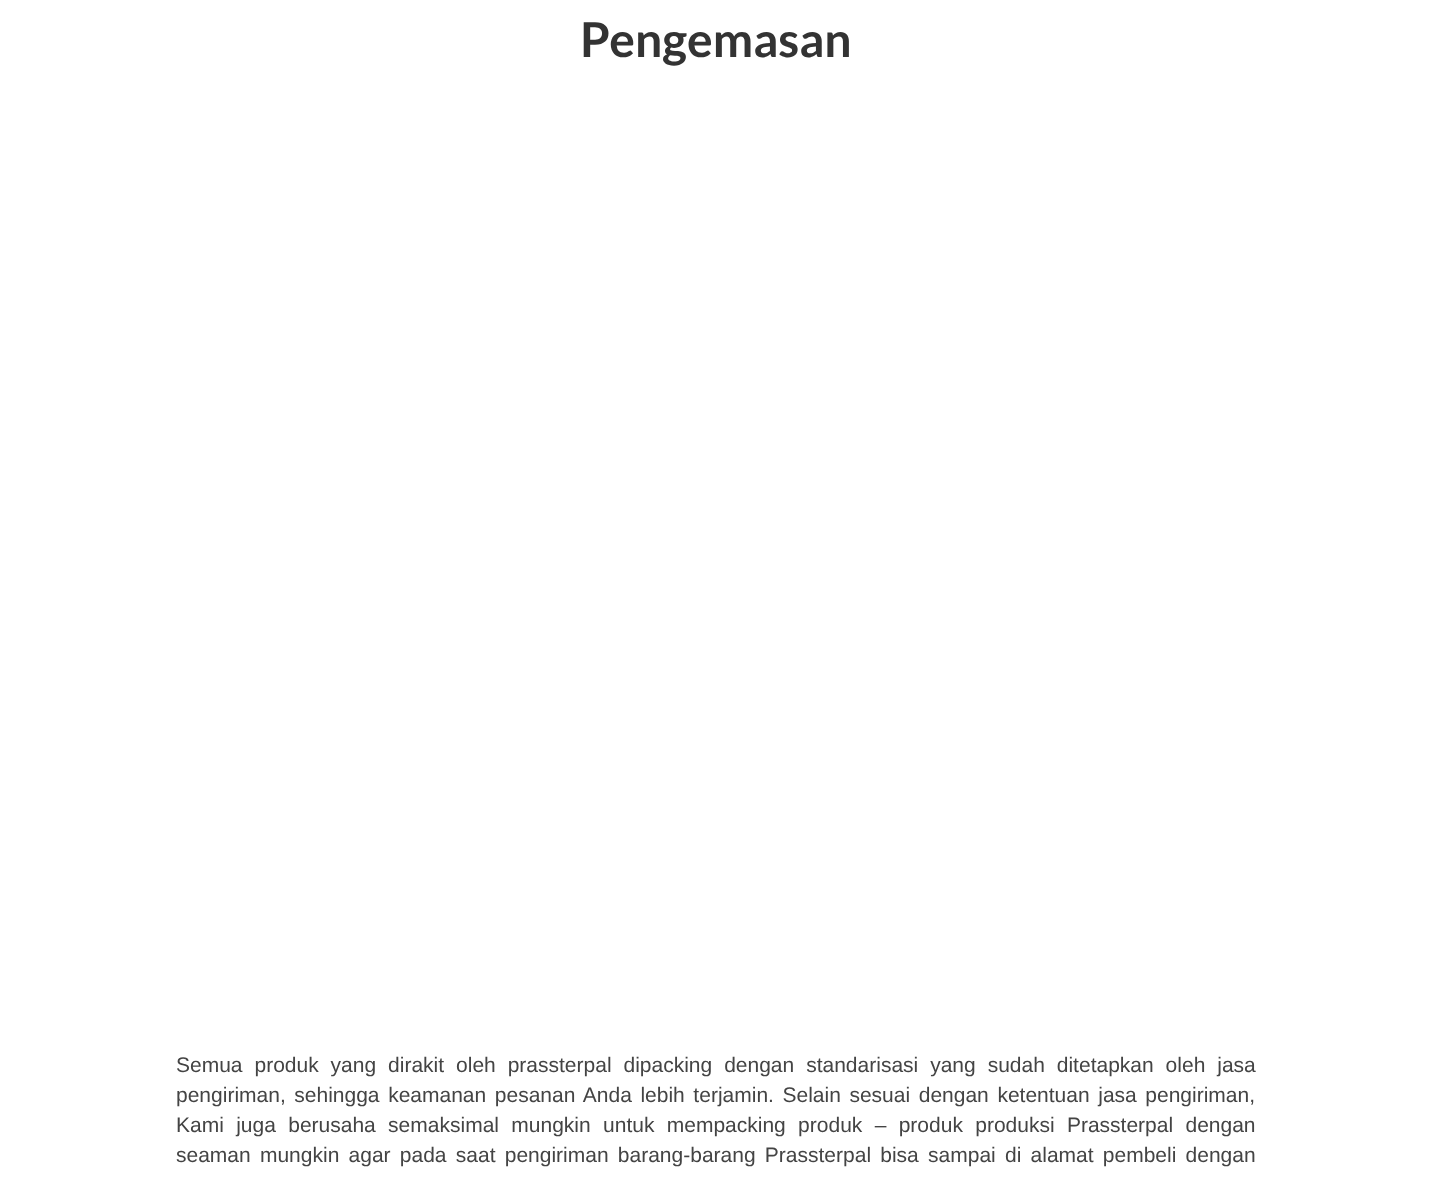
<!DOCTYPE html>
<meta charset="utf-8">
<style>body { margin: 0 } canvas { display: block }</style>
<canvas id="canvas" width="1430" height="1179"></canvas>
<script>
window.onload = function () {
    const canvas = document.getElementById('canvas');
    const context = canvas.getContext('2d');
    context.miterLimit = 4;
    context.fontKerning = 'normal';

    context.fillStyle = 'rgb(255, 255, 255)';
    context.fillRect(0, 0, 1430, 1179);
    context.font = 'bold 48px Lato';
    context.fillStyle = 'rgb(51, 51, 51)';
    context.fillText('Pengemasan', 580, 57);
    context.wordSpacing = '6.1px';
    context.font = '21px Liberation Sans';
    context.fillStyle = 'rgb(68, 68, 68)';
    context.fillText('Semua produk yang dirakit oleh prassterpal dipacking dengan standarisasi yang sudah ditetapkan oleh jasa', 176, 1072);
    context.wordSpacing = '2.75px';
    context.fillText('pengiriman, sehingga keamanan pesanan Anda lebih terjamin. Selain sesuai dengan ketentuan jasa pengiriman,', 176, 1102);
    context.wordSpacing = '6.5px';
    context.fillText('Kami juga berusaha semaksimal mungkin untuk mempacking produk – produk produksi Prassterpal dengan', 176, 1132);
    context.wordSpacing = '3.4px';
    context.fillText('seaman mungkin agar pada saat pengiriman barang-barang Prassterpal bisa sampai di alamat pembeli dengan', 176, 1162);
};
</script>
